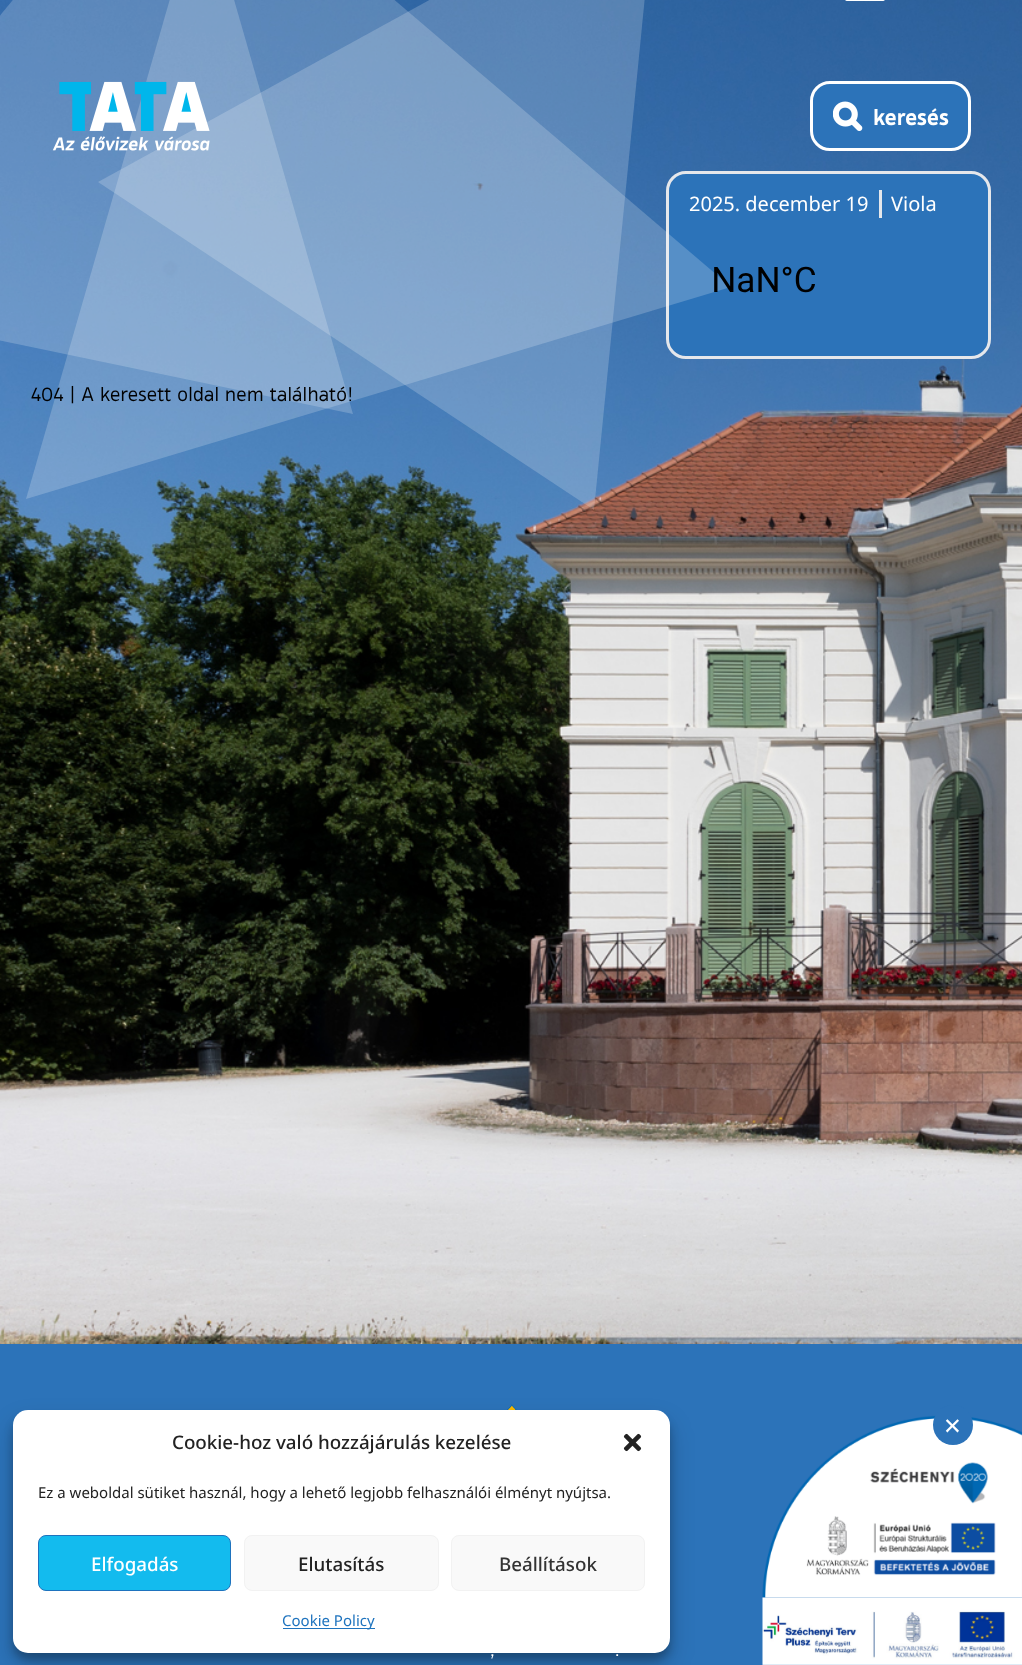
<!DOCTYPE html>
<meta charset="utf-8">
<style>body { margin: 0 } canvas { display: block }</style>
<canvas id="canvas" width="1022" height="1665"></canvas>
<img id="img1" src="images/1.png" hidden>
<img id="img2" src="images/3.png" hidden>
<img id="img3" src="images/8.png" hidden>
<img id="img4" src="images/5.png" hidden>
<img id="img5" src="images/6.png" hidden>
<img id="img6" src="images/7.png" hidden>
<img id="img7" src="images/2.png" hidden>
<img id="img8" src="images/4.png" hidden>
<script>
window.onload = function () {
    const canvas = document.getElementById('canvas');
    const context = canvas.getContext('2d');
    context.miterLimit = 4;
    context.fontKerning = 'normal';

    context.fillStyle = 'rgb(255, 255, 255)';
    context.fillRect(0, 0, 1022, 1665);
    context.drawImage(document.getElementById('img1'), 0, 0, 1022, 1344);
    context.beginPath();
    context.roundRect(845, -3, 40, 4, 2.5);
    context.fill();
    context.fillStyle = 'rgba(255, 255, 255, 0.2)';
    context.beginPath();
    context.moveTo(657, -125);
    context.lineTo(98, 182);
    context.lineTo(594, 510);
    context.closePath();
    context.fill();
    context.beginPath();
    context.moveTo(177, -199);
    context.lineTo(-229, 293);
    context.lineTo(353, 414);
    context.closePath();
    context.fill();
    context.fillStyle = 'rgb(44, 115, 185)';
    context.beginPath();
    context.roundRect(811.5, 82.5, 158, 67, 18.5);
    context.fill();
    context.strokeStyle = 'rgb(255, 255, 255)';
    context.lineWidth = 3;
    context.stroke();
    context.drawImage(document.getElementById('img2'), 833, 101, 30, 30);
    context.beginPath();
    context.roundRect(667.5, 172.5, 322, 185, 18.5);
    context.fill();
    context.strokeStyle = 'rgb(229, 231, 235)';
    context.stroke();
    context.fillStyle = 'rgb(229, 231, 235)';
    context.fillRect(879, 190, 3, 28);
    context.fillStyle = 'rgb(44, 115, 185)';
    context.fillRect(0, 1344, 1022, 321);
    context.drawImage(document.getElementById('img3'), 507, 1404, 10, 6);
    context.fillStyle = 'rgba(0, 0, 0, 0.23)';
    context.filter = 'blur(4px)';
    context.beginPath();
    context.roundRect(13, 1418, 657, 242, 15);
    context.fill();
    context.filter = 'none';
    context.fillStyle = 'rgba(0, 0, 0, 0.19)';
    context.filter = 'blur(12.5px)';
    context.beginPath();
    context.roundRect(13, 1423, 657, 242, 15);
    context.fill();
    context.filter = 'none';
    context.fillStyle = 'rgb(255, 255, 255)';
    context.beginPath();
    context.roundRect(13, 1410, 657, 243, 15);
    context.fill();
    context.drawImage(document.getElementById('img4'), 623, 1433, 19, 19);
    context.fillStyle = 'rgb(19, 187, 238)';
    context.beginPath();
    context.roundRect(38.5, 1535.5, 192, 55, 7.5);
    context.fill();
    context.strokeStyle = 'rgb(30, 115, 190)';
    context.lineWidth = 1;
    context.stroke();
    context.fillStyle = 'rgb(249, 249, 249)';
    context.beginPath();
    context.roundRect(244.5, 1535.5, 194, 55, 7.5);
    context.fill();
    context.strokeStyle = 'rgb(242, 242, 242)';
    context.stroke();
    context.beginPath();
    context.roundRect(451.5, 1535.5, 193, 55, 7.5);
    context.fill();
    context.stroke();
    context.fillStyle = 'rgb(30, 115, 190)';
    context.fillRect(283, 1628, 92, 1);
    context.drawImage(document.getElementById('img5'), 762, 1415, 260, 183);
    context.fillStyle = 'rgb(44, 115, 185)';
    context.beginPath();
    context.arc(953, 1425, 20, 0, 2 * Math.PI);
    context.fill();
    context.drawImage(document.getElementById('img6'), 762, 1597, 260, 68);
    context.font = '600 22.5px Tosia';
    context.fillStyle = 'rgb(255, 255, 255)';
    context.fillText('keresés', 873, 125);
    context.font = '20px Noto Sans';
    context.fillText('2025. december 19', 689, 211);
    context.fillStyle = 'rgba(255, 255, 255, 0.2)';
    context.beginPath();
    context.moveTo(214, -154);
    context.lineTo(26, 499);
    context.lineTo(731, 287);
    context.closePath();
    context.fill();
    context.drawImage(document.getElementById('img7'), 52, 81, 158, 70);
    context.fillStyle = 'rgb(255, 255, 255)';
    context.fillText('Viola', 891, 211);
    context.drawImage(document.getElementById('img8'), 714, 266, 101, 27);
    context.font = '20px Tosia';
    context.fillStyle = 'rgb(0, 0, 0)';
    context.fillText('404 | A keresett oldal nem található!', 31, 401);
    context.font = '500 18.75px Noto Sans';
    context.fillStyle = 'rgb(34, 34, 34)';
    context.fillText('Cookie-hoz való hozzájárulás kezelése', 172, 1449);
    context.font = '15px Noto Sans';
    context.fillText('Ez a weboldal sütiket használ, hogy a lehető legjobb felhasználói élményt nyújtsa.', 38, 1498);
    context.font = '500 18.75px Noto Sans';
    context.fillStyle = 'rgb(255, 255, 255)';
    context.fillText('Elfogadás', 91, 1571);
    context.fillStyle = 'rgb(34, 34, 34)';
    context.fillText('Elutasítás', 298, 1571);
    context.fillStyle = 'rgb(51, 51, 51)';
    context.fillText('Beállítások', 499, 1571);
    context.font = '15px Noto Sans';
    context.fillStyle = 'rgb(30, 115, 190)';
    context.fillText('Cookie Policy', 282, 1626);
    context.font = '22.5px DejaVu Sans';
    context.fillStyle = 'rgb(255, 255, 255)';
    context.fillText('✕', 943, 1434);
    context.font = '20px Tosia';
    context.fillText(',', 490, 1656);
    context.fillText('.', 615, 1656);
};
</script>
